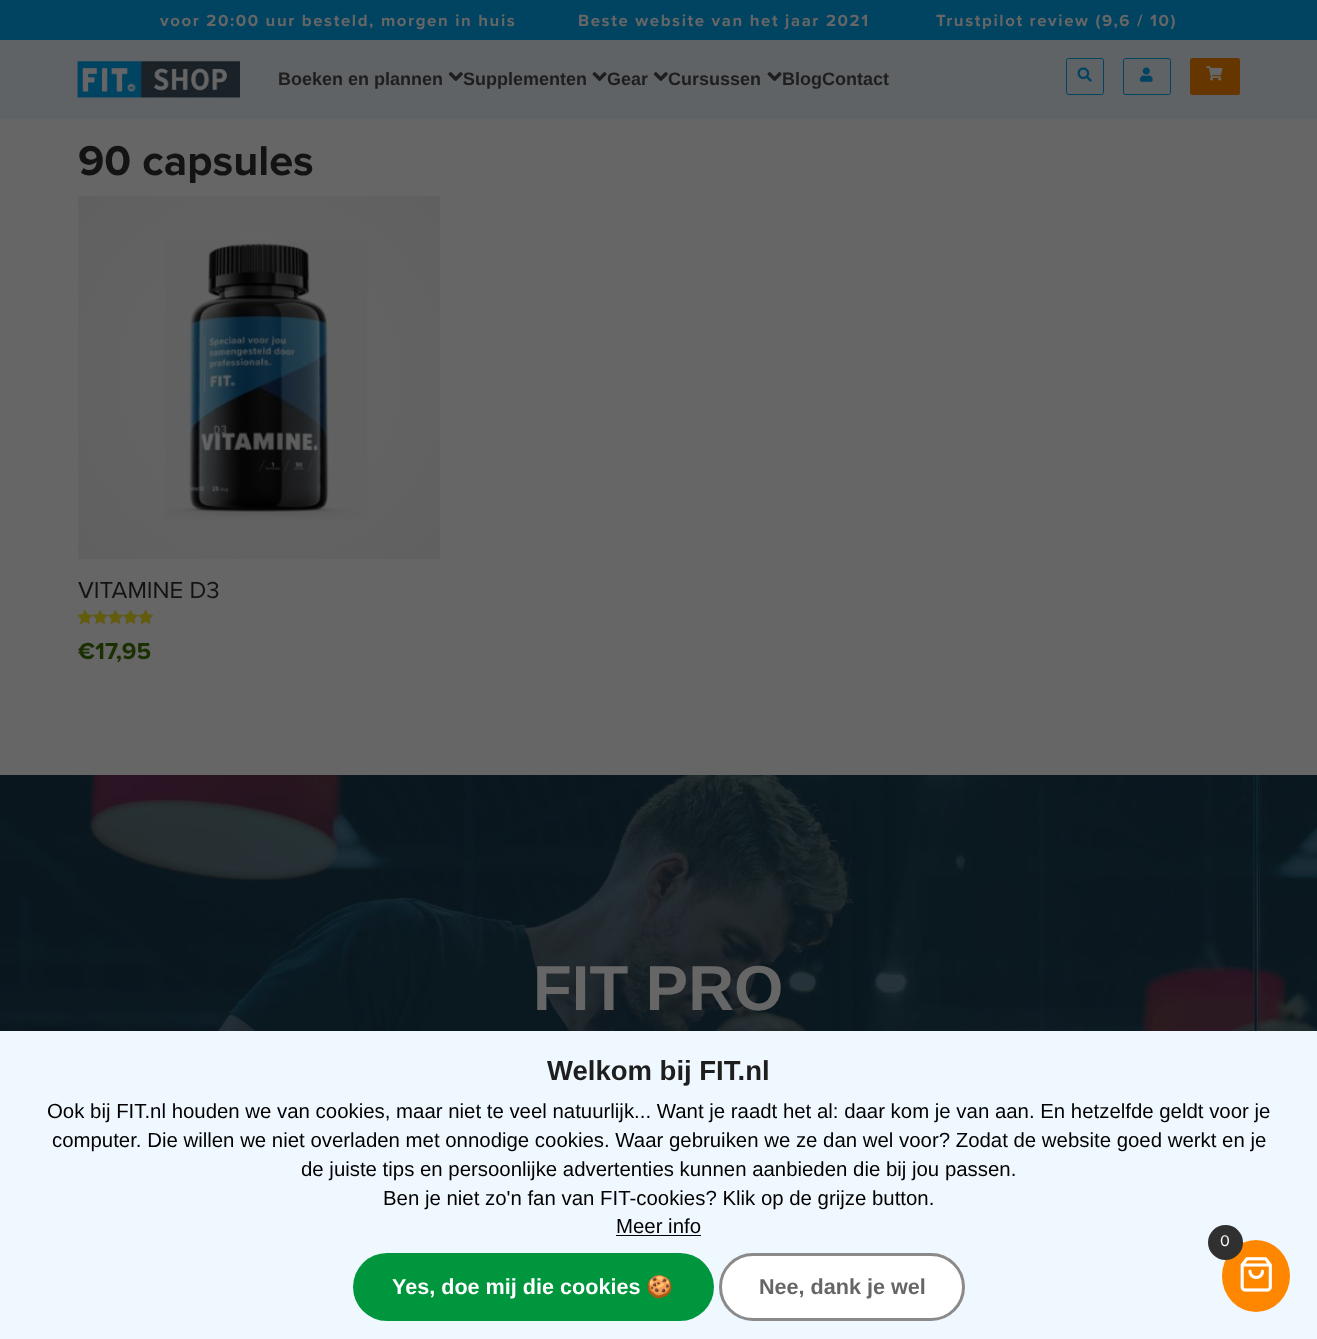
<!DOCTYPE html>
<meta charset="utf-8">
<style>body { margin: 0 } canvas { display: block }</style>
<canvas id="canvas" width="1317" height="1339"></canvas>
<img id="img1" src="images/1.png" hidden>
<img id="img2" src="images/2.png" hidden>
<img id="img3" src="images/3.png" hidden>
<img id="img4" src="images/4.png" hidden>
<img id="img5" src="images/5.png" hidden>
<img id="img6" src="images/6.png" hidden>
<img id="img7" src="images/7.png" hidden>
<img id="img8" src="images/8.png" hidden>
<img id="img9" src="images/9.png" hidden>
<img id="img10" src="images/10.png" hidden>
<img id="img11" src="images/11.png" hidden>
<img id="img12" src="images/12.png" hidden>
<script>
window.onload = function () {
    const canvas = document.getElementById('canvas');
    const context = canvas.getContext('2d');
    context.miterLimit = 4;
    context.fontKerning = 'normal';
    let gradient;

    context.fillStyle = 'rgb(102, 102, 102)';
    context.fillRect(0, 0, 1317, 1339);
    context.fillStyle = 'rgb(96, 99, 102)';
    context.fillRect(0, 40, 1317, 79);
    context.fillStyle = 'rgb(1, 68, 98)';
    context.fillRect(0, 0, 1317, 40);
    context.drawImage(document.getElementById('img1'), 77, 61, 163, 37);
    context.drawImage(document.getElementById('img2'), 448, 72, 15, 10);
    context.drawImage(document.getElementById('img3'), 592, 72, 15, 10);
    context.drawImage(document.getElementById('img2'), 653, 72, 15, 10);
    context.drawImage(document.getElementById('img3'), 767, 72, 15, 10);
    context.beginPath();
    context.roundRect(1066.5, 58.5, 37, 36, 2);
    context.strokeStyle = 'rgb(1, 68, 98)';
    context.stroke();
    context.drawImage(document.getElementById('img4'), 1077, 67, 15, 15);
    context.beginPath();
    context.roundRect(1123.5, 58.5, 47, 36, 2);
    context.stroke();
    context.drawImage(document.getElementById('img5'), 1140, 67, 13, 15);
    context.fillStyle = 'rgb(102, 54, 0)';
    context.beginPath();
    context.roundRect(1190, 58, 50, 37, 2.5);
    context.fill();
    context.drawImage(document.getElementById('img6'), 1206, 66, 17, 15);
    gradient = context.createRadialGradient(259, 378, 0, 259, 378, 256);
    gradient.addColorStop(0, 'rgb(97, 97, 97)');
    gradient.addColorStop(0.47, 'rgb(99, 99, 99)');
    gradient.addColorStop(1, 'rgb(96, 96, 96)');
    context.fillStyle = gradient;
    context.fillRect(78, 196, 362, 363);
    context.drawImage(document.getElementById('img7'), 165, 240, 202, 281);
    context.drawImage(document.getElementById('img8'), 78, 610, 75, 14);
    context.drawImage(document.getElementById('img9'), 78, 610, 75, 14);
    context.drawImage(document.getElementById('img10'), 78, 610, 7, 14);
    context.drawImage(document.getElementById('img11'), 0, 775, 1317, 256);
    context.fillStyle = 'rgb(240, 248, 255)';
    context.fillRect(0, 1031, 1317, 308);
    context.fillStyle = 'rgb(0, 0, 0)';
    context.fillRect(616, 1235, 85, 1);
    context.fillStyle = 'rgb(0, 150, 61)';
    context.beginPath();
    context.roundRect(353, 1253, 361, 68, 34);
    context.fill();
    context.fillStyle = 'rgb(255, 255, 255)';
    context.beginPath();
    context.roundRect(720.5, 1254.5, 243, 65, 32.5);
    context.fill();
    context.strokeStyle = 'rgb(138, 138, 138)';
    context.lineWidth = 3;
    context.stroke();
    context.fillStyle = 'rgb(255, 135, 0)';
    context.beginPath();
    context.ellipse(1256, 1276, 34, 36, 0, 0, 2 * Math.PI);
    context.fill();
    context.fillStyle = 'rgb(48, 48, 48)';
    context.beginPath();
    context.arc(1225.5, 1242.5, 17.5, 0, 2 * Math.PI);
    context.fill();
    context.drawImage(document.getElementById('img12'), 1240, 1257, 32, 35);
    context.letterSpacing = '1.6px';
    context.font = '16.8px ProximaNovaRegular';
    context.fillStyle = 'rgb(102, 102, 102)';
    context.fillText('voor 20:00 uur besteld, morgen in huis', 160, 26);
    context.fillText('Beste website van het jaar 2021', 578, 26);
    context.fillText('Trustpilot review (9,6 / 10)', 936, 26);
    context.letterSpacing = '0px';
    context.font = 'bold 18px Liberation Sans';
    context.fillStyle = 'rgb(30, 30, 30)';
    context.fillText('Boeken en plannen', 278, 85);
    context.fillText('Supplementen', 463, 85);
    context.fillText('Gear', 607, 85);
    context.fillText('Cursussen', 668, 85);
    context.fillText('BlogContact', 782, 85);
    context.font = '43.25px ProximaNovaRegular';
    context.fillStyle = 'rgb(19, 19, 19)';
    context.fillText('90 capsules', 78, 175);
    context.font = '24px "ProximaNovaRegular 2"';
    context.fillText('VITAMINE D3', 78, 598);
    context.font = '24px ProximaNovaRegular';
    context.fillStyle = 'rgb(26, 47, 2)';
    context.fillText('€17,95', 78, 659);
    context.font = 'bold 63.5px Liberation Sans';
    context.fillStyle = 'rgb(102, 102, 102)';
    context.fillText('FIT PRO', 533, 1010);
    context.font = 'bold 27.5px Liberation Sans';
    context.fillStyle = 'rgb(30, 30, 30)';
    context.fillText('Welkom bij FIT.nl', 547, 1080);
    context.font = '20.4px Liberation Sans';
    context.fillStyle = 'rgb(0, 0, 0)';
    context.fillText('Ook bij FIT.nl houden we van cookies, maar niet te veel natuurlijk... Want je raadt het al: daar kom je van aan. En hetzelfde geldt voor je', 47, 1118);
    context.fillText('computer. Die willen we niet overladen met onnodige cookies. Waar gebruiken we ze dan wel voor? Zodat de website goed werkt en je', 52, 1147);
    context.fillText('de juiste tips en persoonlijke advertenties kunnen aanbieden die bij jou passen.', 301, 1176);
    context.fillText('Ben je niet zo\'n fan van FIT-cookies? Klik op de grijze button.', 383, 1205);
    context.fillText('Meer info', 616, 1233);
    context.font = 'bold 21.6px Liberation Sans';
    context.fillStyle = 'rgb(255, 255, 255)';
    context.fillText('Yes, doe mij die cookies', 392, 1294);
    context.font = 'bold 21.6px Noto Color Emoji';
    context.fillText('🍪', 646, 1294);
    context.font = 'bold 21.6px Liberation Sans';
    context.fillStyle = 'rgb(102, 102, 102)';
    context.fillText('Nee, dank je wel', 759, 1294);
    context.font = '16px "ProximaNovaRegular 2"';
    context.fillStyle = 'rgb(255, 255, 255)';
    context.fillText('0', 1220, 1246);
};
</script>
